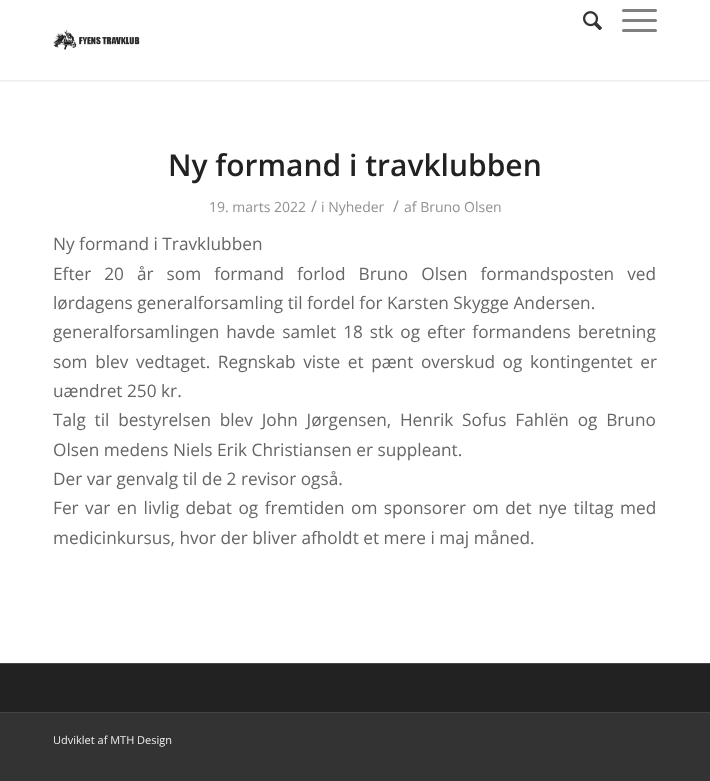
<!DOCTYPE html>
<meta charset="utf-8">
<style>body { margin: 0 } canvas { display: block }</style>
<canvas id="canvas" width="710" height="781"></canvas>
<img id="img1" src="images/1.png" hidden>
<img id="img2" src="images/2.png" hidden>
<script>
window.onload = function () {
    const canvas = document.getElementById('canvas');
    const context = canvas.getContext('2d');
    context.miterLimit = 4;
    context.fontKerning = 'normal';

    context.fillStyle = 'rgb(51, 51, 51)';
    context.fillRect(0, 0, 710, 781);
    context.fillStyle = 'rgb(255, 255, 255)';
    context.fillRect(0, 80, 710, 583);
    context.fillStyle = 'rgba(0, 0, 0, 0.1)';
    context.filter = 'blur(1px)';
    context.beginPath();
    context.rect(-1, -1, 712, 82);
    context.fill();
    context.filter = 'none';
    context.fillStyle = 'rgb(255, 255, 255)';
    context.fillRect(0, 0, 710, 80);
    context.drawImage(document.getElementById('img1'), 583, 11, 19, 20);
    context.fillStyle = 'rgb(128, 128, 128)';
    context.beginPath();
    context.roundRect(622, 19, 35, 3, 1.5);
    context.fill();
    context.beginPath();
    context.roundRect(622, 9, 35, 3, 1.5);
    context.fill();
    context.beginPath();
    context.roundRect(622, 29, 35, 3, 1.5);
    context.fill();
    context.drawImage(document.getElementById('img2'), 53, 29, 87, 21);
    context.fillStyle = 'rgb(34, 34, 34)';
    context.fillRect(0, 664, 710, 48);
    context.fillStyle = 'rgb(68, 68, 68)';
    context.fillRect(0, 663, 710, 1);
    context.fillRect(0, 712, 710, 1);
    context.font = '600 30px Open Sans';
    context.fillStyle = 'rgb(34, 34, 34)';
    context.fillText('Ny formand i travklubben', 168, 176);
    context.font = '14px Open Sans';
    context.fillStyle = 'rgb(145, 145, 145)';
    context.fillText('19. marts 2022', 209, 212);
    context.font = '16px Open Sans';
    context.fillText('/', 311, 212);
    context.font = '14px Open Sans';
    context.fillText('i Nyheder', 321, 212);
    context.font = '16px Open Sans';
    context.fillText('/', 393, 212);
    context.font = '14px Open Sans';
    context.fillText('af Bruno Olsen', 404, 212);
    context.font = '17.25px Open Sans';
    context.fillStyle = 'rgb(102, 102, 102)';
    context.fillText('Ny formand i Travklubben', 53, 250);
    context.wordSpacing = '8.5px';
    context.fillText('Efter 20 år som formand forlod Bruno Olsen formandsposten ved', 53, 280);
    context.wordSpacing = '0px';
    context.fillText('lørdagens generalforsamling til fordel for Karsten Skygge Andersen.', 53, 309);
    context.wordSpacing = '2.5px';
    context.fillText('generalforsamlingen havde samlet 18 stk og efter formandens beretning', 53, 338);
    context.wordSpacing = '3.1px';
    context.fillText('som blev vedtaget. Regnskab viste et pænt overskud og kontingentet er', 53, 368);
    context.wordSpacing = '0px';
    context.fillText('uændret 250 kr.', 53, 397);
    context.wordSpacing = '4.25px';
    context.fillText('Talg til bestyrelsen blev John Jørgensen, Henrik Sofus Fahlën og Bruno', 53, 426);
    context.wordSpacing = '0px';
    context.fillText('Olsen medens Niels Erik Christiansen er suppleant.', 53, 456);
    context.fillText('Der var genvalg til de 2 revisor også.', 53, 485);
    context.wordSpacing = '2px';
    context.fillText('Fer var en livlig debat og fremtiden om sponsorer om det nye tiltag med', 53, 514);
    context.wordSpacing = '0px';
    context.fillText('medicinkursus, hvor der bliver afholdt et mere i maj måned.', 53, 544);
    context.font = '11px Open Sans';
    context.fillStyle = 'rgb(238, 238, 238)';
    context.fillText('Udviklet af MTH Design', 53, 744);
};
</script>
